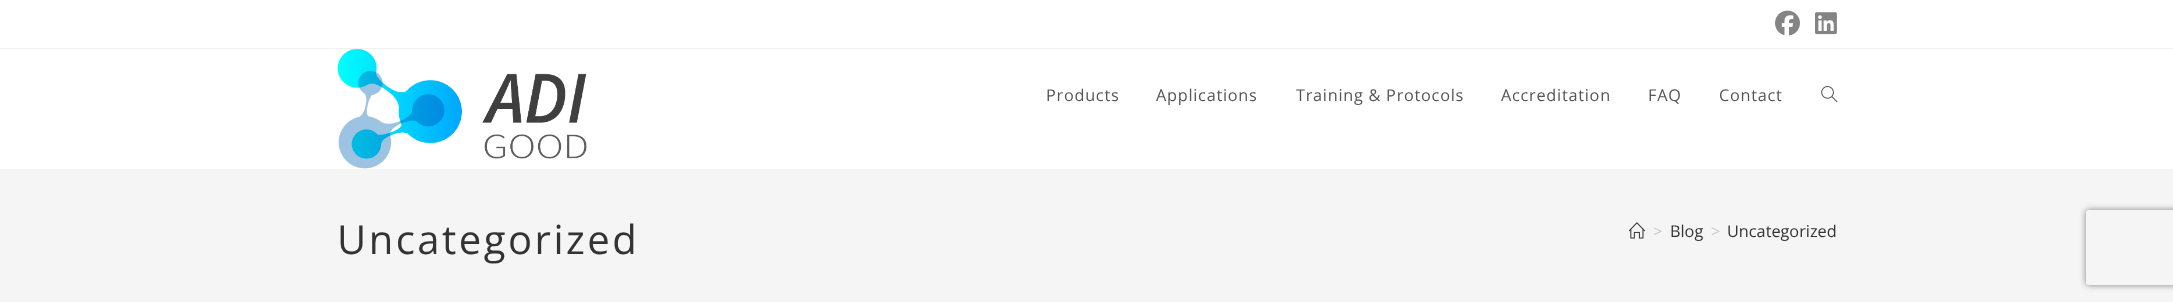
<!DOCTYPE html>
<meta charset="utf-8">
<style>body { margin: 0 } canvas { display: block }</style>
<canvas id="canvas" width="2173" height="302"></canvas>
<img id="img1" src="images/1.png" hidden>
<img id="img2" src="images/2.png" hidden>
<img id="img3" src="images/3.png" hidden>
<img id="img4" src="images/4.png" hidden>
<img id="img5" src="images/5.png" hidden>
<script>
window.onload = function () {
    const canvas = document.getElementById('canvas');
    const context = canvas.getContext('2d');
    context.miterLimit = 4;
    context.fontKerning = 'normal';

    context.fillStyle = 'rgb(255, 255, 255)';
    context.fillRect(0, 0, 2173, 302);
    context.fillStyle = 'rgb(241, 241, 241)';
    context.fillRect(0, 48, 2173, 1);
    context.drawImage(document.getElementById('img1'), 1775, 10, 25, 26);
    context.drawImage(document.getElementById('img2'), 1815, 12, 22, 23);
    context.drawImage(document.getElementById('img3'), 337, 49, 250, 120);
    context.drawImage(document.getElementById('img4'), 1821, 86, 17, 17);
    context.fillStyle = 'rgb(245, 245, 245)';
    context.fillRect(0, 169, 2173, 133);
    context.drawImage(document.getElementById('img5'), 1629, 222, 16, 17);
    context.save();
    context.beginPath();
    context.moveTo(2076, 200);
    context.lineTo(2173, 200);
    context.lineTo(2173, 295);
    context.lineTo(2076, 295);
    context.closePath();
    context.moveTo(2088.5, 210);
    context.lineTo(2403.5, 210);
    context.bezierCurveTo(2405, 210, 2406, 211, 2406, 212.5);
    context.lineTo(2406, 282.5);
    context.bezierCurveTo(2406, 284, 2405, 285, 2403.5, 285);
    context.lineTo(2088.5, 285);
    context.bezierCurveTo(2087, 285, 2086, 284, 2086, 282.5);
    context.lineTo(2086, 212.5);
    context.bezierCurveTo(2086, 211, 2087, 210, 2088.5, 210);
    context.closePath();
    context.clip('evenodd');
    context.fillStyle = 'rgb(128, 128, 128)';
    context.filter = 'blur(3px)';
    context.beginPath();
    context.roundRect(2086, 210, 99, 75, 2.5);
    context.fill();
    context.filter = 'none';
    context.restore();
    context.letterSpacing = '0.75px';
    context.font = '16.25px Open Sans';
    context.fillStyle = 'rgb(85, 85, 85)';
    context.fillText('Products', 1046, 101);
    context.fillText('Applications', 1156, 101);
    context.fillText('Training & Protocols', 1296, 101);
    context.fillText('Accreditation', 1501, 101);
    context.fillText('FAQ', 1648, 101);
    context.fillText('Contact', 1719, 101);
    context.letterSpacing = '2.5px';
    context.font = '40px Open Sans';
    context.fillStyle = 'rgb(51, 51, 51)';
    context.fillText('Uncategorized', 337, 254);
    context.letterSpacing = '0px';
    context.font = '16.25px Open Sans';
    context.fillStyle = 'rgb(198, 198, 198)';
    context.fillText('>', 1653, 237);
    context.fillStyle = 'rgb(51, 51, 51)';
    context.fillText('Blog', 1670, 237);
    context.fillStyle = 'rgb(198, 198, 198)';
    context.fillText('>', 1711, 237);
    context.fillStyle = 'rgb(51, 51, 51)';
    context.fillText('Uncategorized', 1727, 237);
};
</script>
